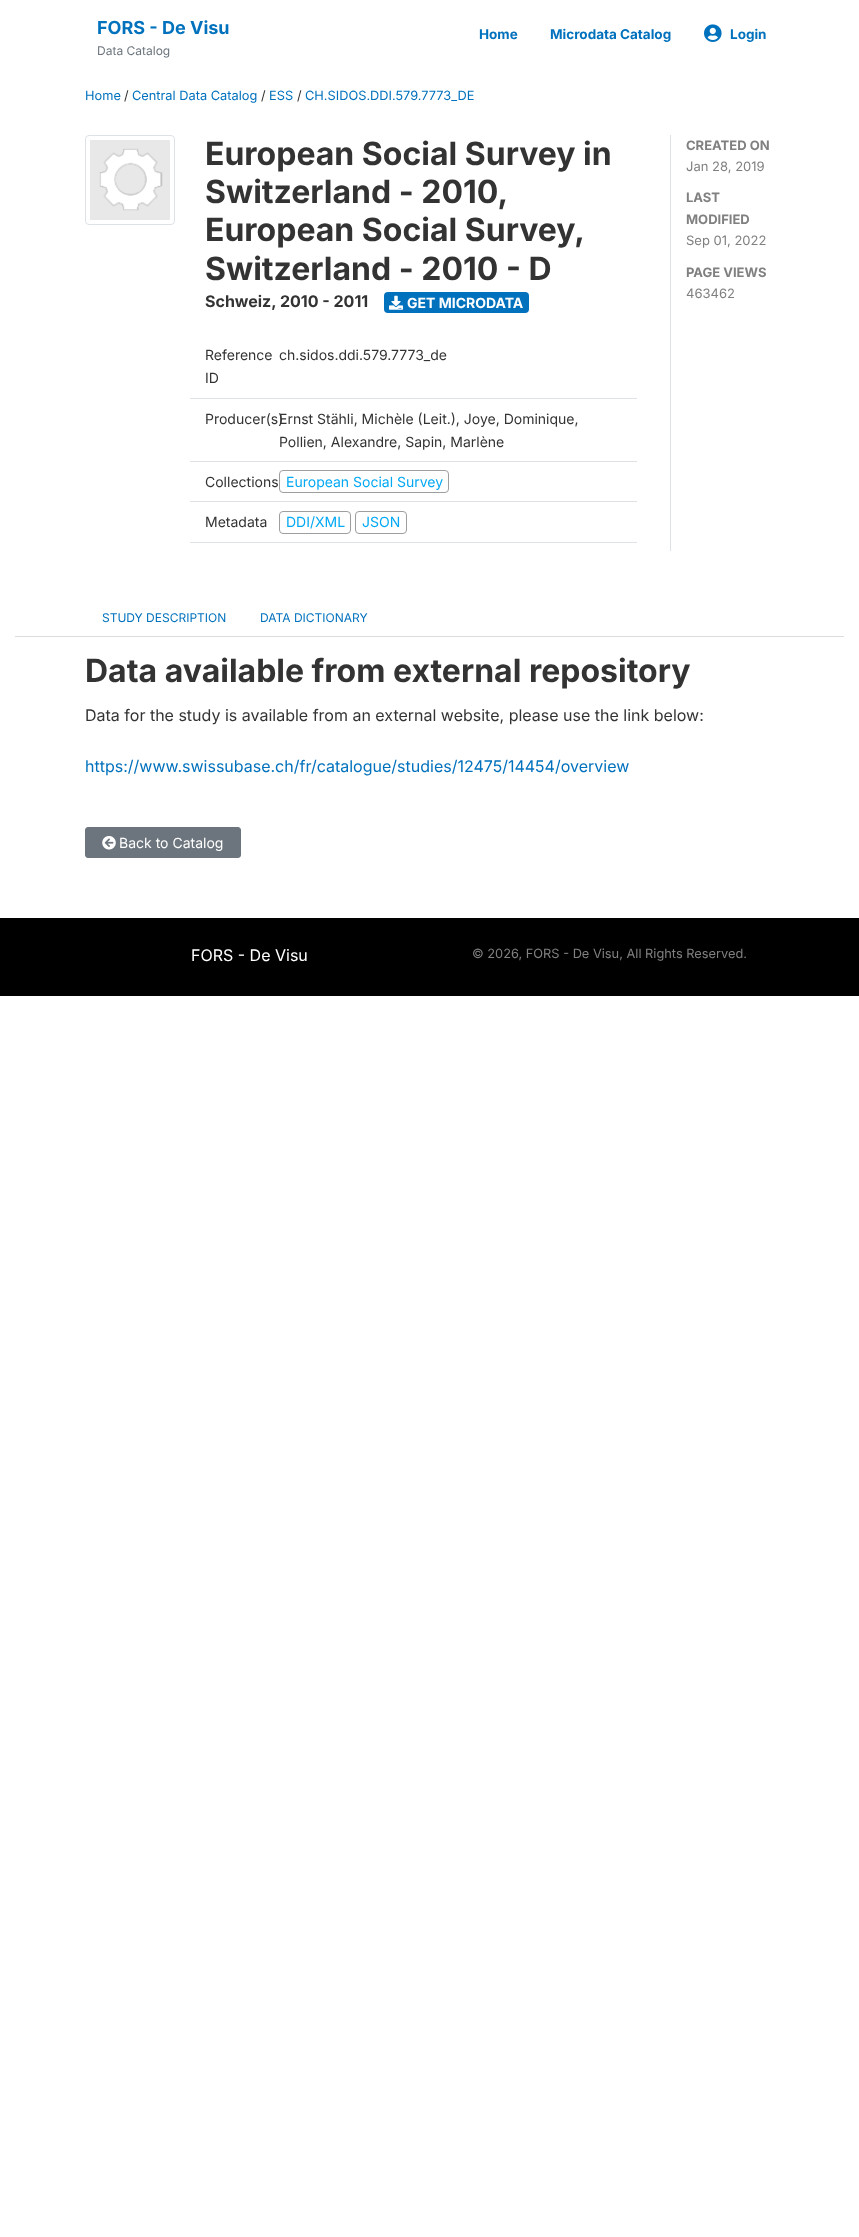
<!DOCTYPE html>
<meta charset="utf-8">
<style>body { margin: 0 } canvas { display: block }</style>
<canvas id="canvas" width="859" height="2237"></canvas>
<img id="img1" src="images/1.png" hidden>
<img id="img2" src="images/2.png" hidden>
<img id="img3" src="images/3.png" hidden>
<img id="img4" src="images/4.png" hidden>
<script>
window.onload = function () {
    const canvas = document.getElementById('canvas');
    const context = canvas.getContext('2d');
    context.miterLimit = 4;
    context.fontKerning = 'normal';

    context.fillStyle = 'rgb(255, 255, 255)';
    context.fillRect(0, 0, 859, 2237);
    context.drawImage(document.getElementById('img1'), 704, 24, 18, 18);
    context.fillStyle = 'rgb(220, 220, 220)';
    context.fillRect(15, 636, 829, 1);
    context.beginPath();
    context.roundRect(85.5, 135.5, 89, 89, 3.5);
    context.strokeStyle = 'rgb(222, 226, 230)';
    context.stroke();
    context.drawImage(document.getElementById('img2'), 90, 140, 80, 80);
    context.fillStyle = 'rgb(0, 113, 189)';
    context.beginPath();
    context.roundRect(384, 292, 145, 21, 4);
    context.fill();
    context.drawImage(document.getElementById('img3'), 389, 295, 14, 15);
    context.fillStyle = 'rgb(222, 226, 230)';
    context.fillRect(190, 398, 447, 1);
    context.fillRect(190, 461, 447, 1);
    context.fillRect(190, 501, 447, 1);
    context.beginPath();
    context.roundRect(279.5, 470.5, 169, 22, 3.5);
    context.strokeStyle = 'rgb(158, 158, 158)';
    context.stroke();
    context.fillRect(190, 542, 447, 1);
    context.beginPath();
    context.roundRect(279.5, 511.5, 71, 22, 3.5);
    context.stroke();
    context.beginPath();
    context.roundRect(355.5, 511.5, 51, 22, 3.5);
    context.stroke();
    context.fillRect(670, 135, 1, 416);
    context.fillStyle = 'rgb(108, 117, 125)';
    context.beginPath();
    context.roundRect(85.5, 827.5, 155, 30, 2.5);
    context.fill();
    context.strokeStyle = 'rgb(108, 117, 125)';
    context.stroke();
    context.drawImage(document.getElementById('img4'), 102, 836, 14, 14);
    context.fillStyle = 'rgb(0, 0, 0)';
    context.fillRect(0, 918, 859, 78);
    context.font = 'bold 18px Inter';
    context.fillStyle = 'rgb(0, 113, 189)';
    context.fillText('FORS - De Visu', 97, 34);
    context.font = '12px Inter';
    context.fillStyle = 'rgb(108, 117, 125)';
    context.fillText('Data Catalog', 97, 55);
    context.font = 'bold 13.5px Inter';
    context.fillStyle = 'rgb(0, 113, 189)';
    context.fillText('Home', 479, 39);
    context.fillText('Microdata Catalog', 550, 39);
    context.fillText('Login', 730, 39);
    context.font = '12.8px Inter';
    context.fillText('Home', 85, 100);
    context.fillStyle = 'rgb(51, 51, 51)';
    context.fillText('/', 124, 100);
    context.fillStyle = 'rgb(0, 113, 189)';
    context.fillText('Central Data Catalog', 132, 100);
    context.fillStyle = 'rgb(51, 51, 51)';
    context.fillText('/', 261, 100);
    context.fillStyle = 'rgb(0, 113, 189)';
    context.fillText('ESS', 269, 100);
    context.fillStyle = 'rgb(51, 51, 51)';
    context.fillText('/', 297, 100);
    context.fillStyle = 'rgb(0, 113, 189)';
    context.fillText('CH.SIDOS.DDI.579.7773_DE', 305, 100);
    context.font = 'bold 32px Inter';
    context.fillStyle = 'rgb(51, 51, 51)';
    context.fillText('European Social Survey in', 205, 165);
    context.fillText('Switzerland - 2010,', 205, 203);
    context.fillText('European Social Survey,', 205, 241);
    context.fillText('Switzerland - 2010 - D', 205, 280);
    context.font = 'bold 16px Inter';
    context.fillText('Schweiz, 2010 - 2011', 205, 307);
    context.font = 'bold 14px Inter';
    context.fillStyle = 'rgb(255, 255, 255)';
    context.fillText('GET MICRODATA', 407, 308);
    context.font = '14px Inter';
    context.fillStyle = 'rgb(51, 51, 51)';
    context.fillText('Reference', 205, 360);
    context.fillText('ID', 205, 383);
    context.fillText('ch.sidos.ddi.579.7773_de', 279, 360);
    context.fillText('Producer(s)', 205, 424);
    context.fillText('Ernst Stähli, Michèle (Leit.), Joye, Dominique,', 279, 424);
    context.fillText('Pollien, Alexandre, Sapin, Marlène', 279, 447);
    context.fillText('Collections', 205, 487);
    context.fillStyle = 'rgb(3, 169, 244)';
    context.fillText('European Social Survey', 286, 487);
    context.fillStyle = 'rgb(51, 51, 51)';
    context.fillText('Metadata', 205, 527);
    context.fillStyle = 'rgb(3, 169, 244)';
    context.fillText('DDI/XML', 286, 527);
    context.fillText('JSON', 362, 527);
    context.font = 'bold 13px Inter';
    context.fillStyle = 'rgb(128, 128, 128)';
    context.fillText('CREATED ON', 686, 150);
    context.font = '13px Inter';
    context.fillText('Jan 28, 2019', 686, 171);
    context.font = 'bold 13px Inter';
    context.fillText('LAST', 686, 202);
    context.fillText('MODIFIED', 686, 224);
    context.font = '13px Inter';
    context.fillText('Sep 01, 2022', 686, 245);
    context.font = 'bold 13px Inter';
    context.fillText('PAGE VIEWS', 686, 277);
    context.font = '13px Inter';
    context.fillText('463462', 686, 298);
    context.font = '12px Inter';
    context.fillStyle = 'rgb(0, 113, 189)';
    context.fillText('STUDY DESCRIPTION', 102, 622);
    context.fillText('DATA DICTIONARY', 260, 622);
    context.font = 'bold 32px Inter';
    context.fillStyle = 'rgb(51, 51, 51)';
    context.fillText('Data available from external repository', 85, 682);
    context.font = '16px Inter';
    context.fillText('Data for the study is available from an external website, please use the link below:', 85, 721);
    context.fillStyle = 'rgb(0, 113, 189)';
    context.fillText('https://www.swissubase.ch/fr/catalogue/studies/12475/14454/overview', 85, 772);
    context.font = '14px Inter';
    context.fillStyle = 'rgb(255, 255, 255)';
    context.fillText('Back to Catalog', 119, 848);
    context.font = '16px Inter';
    context.fillText('FORS - De Visu', 191, 961);
    context.font = '12.8px Inter';
    context.fillStyle = 'rgb(128, 128, 128)';
    context.fillText('© 2026, FORS - De Visu, All Rights Reserved.', 472, 958);
};
</script>
